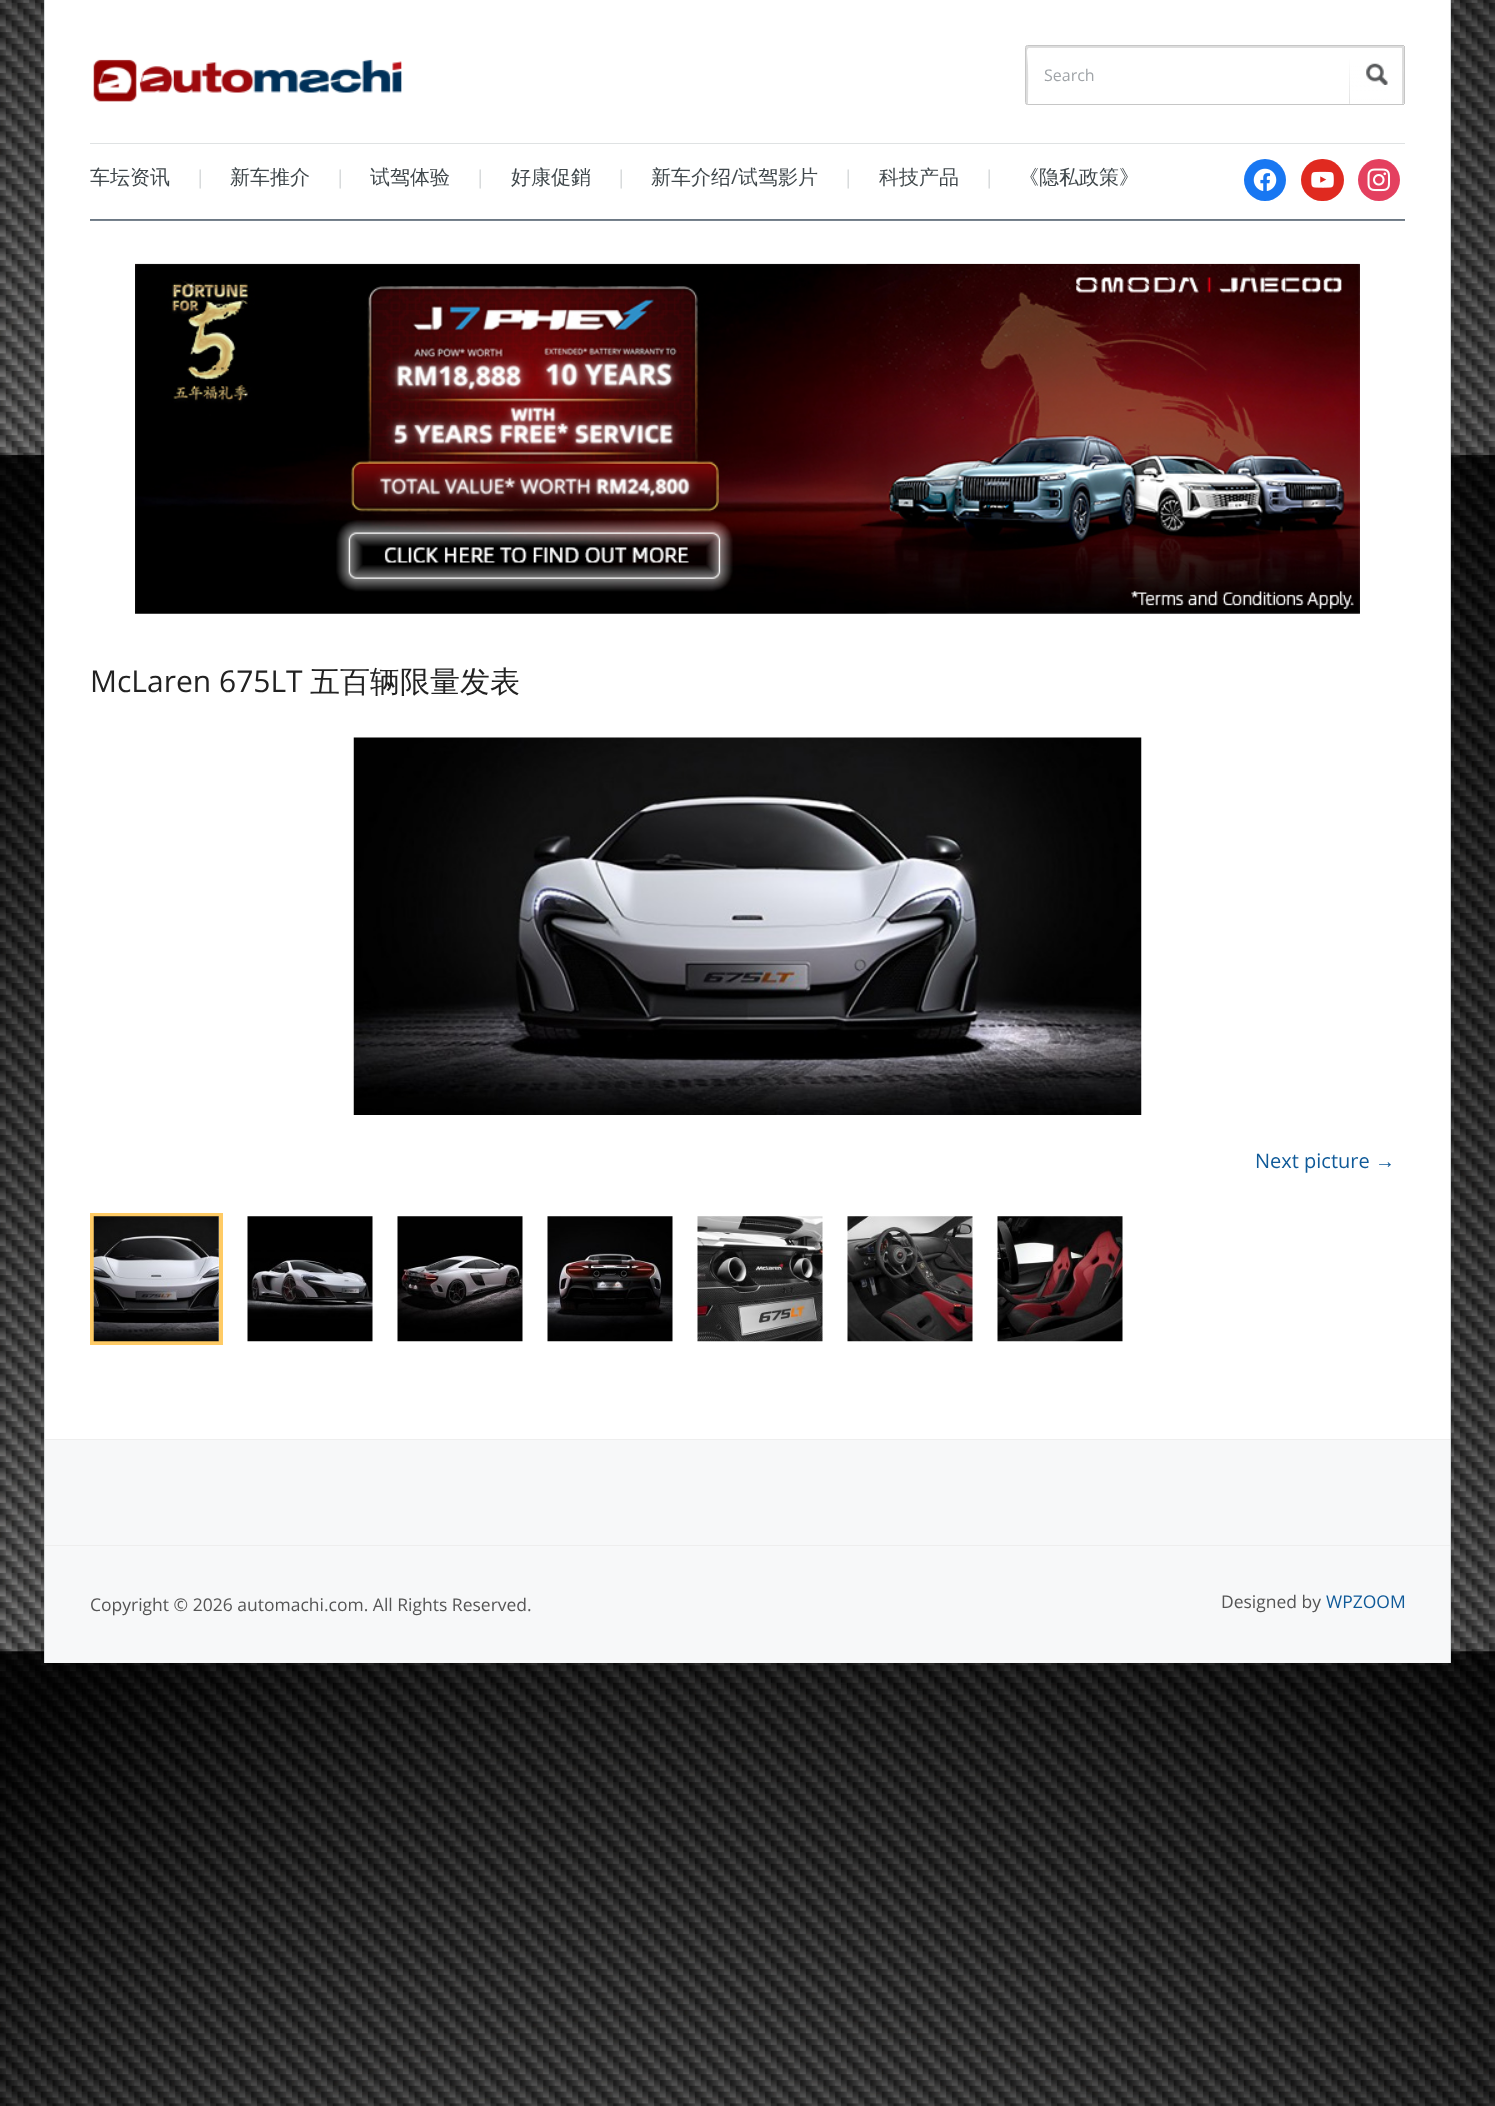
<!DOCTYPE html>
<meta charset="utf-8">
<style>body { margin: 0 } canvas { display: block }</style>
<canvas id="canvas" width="1495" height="2106"></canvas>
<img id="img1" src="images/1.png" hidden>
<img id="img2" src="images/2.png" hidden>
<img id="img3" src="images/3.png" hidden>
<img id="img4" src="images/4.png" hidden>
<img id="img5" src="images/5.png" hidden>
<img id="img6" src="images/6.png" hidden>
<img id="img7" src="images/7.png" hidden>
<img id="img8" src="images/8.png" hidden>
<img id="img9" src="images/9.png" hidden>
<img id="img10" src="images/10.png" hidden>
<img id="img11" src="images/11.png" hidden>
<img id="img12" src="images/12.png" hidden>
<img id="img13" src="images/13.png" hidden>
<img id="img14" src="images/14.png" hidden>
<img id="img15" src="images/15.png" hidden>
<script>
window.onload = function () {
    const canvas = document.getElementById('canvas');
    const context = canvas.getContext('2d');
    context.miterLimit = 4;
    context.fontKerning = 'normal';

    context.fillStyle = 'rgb(255, 255, 255)';
    context.fillRect(0, 0, 1495, 2106);
    context.drawImage(document.getElementById('img1'), 0, 0, 1495, 2106);
    context.fillRect(45, 0, 1405, 1439);
    context.fillStyle = 'rgb(218, 222, 223)';
    context.fillRect(1450, 0, 1, 1663);
    context.fillRect(44, 0, 1, 1663);
    context.drawImage(document.getElementById('img2'), 93, 59, 309, 43);
    context.fillStyle = 'rgb(221, 221, 221)';
    context.beginPath();
    context.moveTo(1029, 48);
    context.lineTo(1349, 48);
    context.lineTo(1349, 46);
    context.lineTo(1027, 46);
    context.bezierCurveTo(1026, 46, 1026, 46, 1026, 47);
    context.lineTo(1026, 103);
    context.bezierCurveTo(1026, 104, 1026, 104, 1027, 104);
    context.lineTo(1028, 104);
    context.bezierCurveTo(1028, 87, 1029, 70, 1027, 53);
    context.bezierCurveTo(1027, 52, 1027, 48, 1029, 48);
    context.closePath();
    context.fill();
    context.beginPath();
    context.roundRect(1025.5, 45.5, 324, 59, [2, 0, 0, 2]);
    context.strokeStyle = 'rgb(198, 198, 198)';
    context.stroke();
    context.drawImage(document.getElementById('img3'), 1349, 48, 39, 56);
    context.beginPath();
    context.moveTo(1349, 46);
    context.lineTo(1349, 48);
    context.lineTo(1401, 48);
    context.bezierCurveTo(1402, 48, 1402, 48, 1402, 49);
    context.lineTo(1402, 104);
    context.bezierCurveTo(1407, 104, 1404, 98, 1404, 94);
    context.lineTo(1404, 75);
    context.bezierCurveTo(1404, 49, 1405, 46, 1403, 46);
    context.closePath();
    context.fill();
    context.fillStyle = 'rgb(198, 198, 198)';
    context.fillRect(1349, 45, 55, 1);
    context.fillRect(1404, 46, 1, 58);
    context.fillRect(1349, 104, 55, 1);
    context.fillStyle = 'rgb(119, 130, 141)';
    context.fillRect(90, 220, 1315, 1);
    context.fillStyle = 'rgb(223, 226, 227)';
    context.fillRect(90, 143, 1315, 1);
    context.fillStyle = 'rgb(109, 121, 133)';
    context.fillRect(90, 219, 1315, 1);
    context.fillStyle = 'rgb(24, 119, 242)';
    context.beginPath();
    context.arc(1265, 180, 21, 0, 2 * Math.PI);
    context.fill();
    context.drawImage(document.getElementById('img4'), 1253, 168, 24, 23);
    context.fillStyle = 'rgb(224, 42, 32)';
    context.beginPath();
    context.roundRect(1301, 159, 43, 42, 21);
    context.fill();
    context.drawImage(document.getElementById('img5'), 1311, 171, 23, 17);
    context.fillStyle = 'rgb(228, 64, 95)';
    context.beginPath();
    context.arc(1379, 180, 21, 0, 2 * Math.PI);
    context.fill();
    context.drawImage(document.getElementById('img6'), 1367, 168, 24, 24);
    context.drawImage(document.getElementById('img7'), 135, 263, 1225, 351);
    context.drawImage(document.getElementById('img8'), 353, 737, 789, 378);
    context.strokeStyle = 'rgb(255, 203, 101)';
    context.lineWidth = 4;
    context.strokeRect(92, 1215, 129, 128);
    context.drawImage(document.getElementById('img9'), 93, 1216, 126, 126);
    context.drawImage(document.getElementById('img10'), 247, 1216, 126, 126);
    context.drawImage(document.getElementById('img11'), 397, 1216, 126, 126);
    context.drawImage(document.getElementById('img12'), 547, 1216, 126, 126);
    context.drawImage(document.getElementById('img13'), 697, 1216, 126, 126);
    context.drawImage(document.getElementById('img14'), 847, 1216, 126, 126);
    context.drawImage(document.getElementById('img15'), 997, 1216, 126, 126);
    context.fillStyle = 'rgb(247, 248, 249)';
    context.fillRect(45, 1440, 1405, 105);
    context.fillStyle = 'rgb(238, 238, 238)';
    context.fillRect(45, 1439, 1405, 1);
    context.fillStyle = 'rgb(247, 248, 249)';
    context.fillRect(45, 1546, 1405, 117);
    context.fillStyle = 'rgb(238, 238, 238)';
    context.fillRect(45, 1545, 1405, 1);
    context.font = '16px Open Sans';
    context.fillStyle = 'rgb(160, 164, 168)';
    context.fillText('Search', 1044, 81);
    context.font = '500 20px WenQuanYi Zen Hei';
    context.fillStyle = 'rgb(64, 72, 76)';
    context.fillText('车坛资讯', 90, 184);
    context.font = '19px Open Sans';
    context.fillStyle = 'rgb(211, 214, 215)';
    context.fillText('|', 195, 184);
    context.font = '500 20px WenQuanYi Zen Hei';
    context.fillStyle = 'rgb(64, 72, 76)';
    context.fillText('新车推介', 230, 184);
    context.font = '19px Open Sans';
    context.fillStyle = 'rgb(211, 214, 215)';
    context.fillText('|', 335, 184);
    context.font = '500 20px WenQuanYi Zen Hei';
    context.fillStyle = 'rgb(64, 72, 76)';
    context.fillText('试驾体验', 370, 184);
    context.font = '19px Open Sans';
    context.fillStyle = 'rgb(211, 214, 215)';
    context.fillText('|', 475, 184);
    context.font = '500 20px WenQuanYi Zen Hei';
    context.fillStyle = 'rgb(64, 72, 76)';
    context.fillText('好康促銷', 511, 184);
    context.font = '19px Open Sans';
    context.fillStyle = 'rgb(211, 214, 215)';
    context.fillText('|', 616, 184);
    context.font = '500 20px WenQuanYi Zen Hei';
    context.fillStyle = 'rgb(64, 72, 76)';
    context.fillText('新车介绍', 651, 184);
    context.font = '20px Open Sans';
    context.fillText('/', 731, 184);
    context.font = '500 20px WenQuanYi Zen Hei';
    context.fillText('试驾影片', 738, 184);
    context.font = '19px Open Sans';
    context.fillStyle = 'rgb(211, 214, 215)';
    context.fillText('|', 843, 184);
    context.font = '500 20px WenQuanYi Zen Hei';
    context.fillStyle = 'rgb(64, 72, 76)';
    context.fillText('科技产品', 879, 184);
    context.font = '19px Open Sans';
    context.fillStyle = 'rgb(211, 214, 215)';
    context.fillText('|', 984, 184);
    context.font = '500 20px WenQuanYi Zen Hei';
    context.fillStyle = 'rgb(64, 72, 76)';
    context.fillText('《隐私政策》', 1019, 184);
    context.font = '30px Open Sans';
    context.fillStyle = 'rgb(34, 34, 34)';
    context.fillText('McLaren 675LT', 90, 692);
    context.font = '500 30px WenQuanYi Zen Hei';
    context.fillText('五百辆限量发表', 310, 692);
    context.font = '20px Open Sans';
    context.fillStyle = 'rgb(15, 90, 153)';
    context.fillText('Next picture', 1255, 1168);
    context.font = '20px Liberation Serif';
    context.fillText('→', 1375, 1168);
    context.font = '17.5px Open Sans';
    context.fillStyle = 'rgb(85, 85, 85)';
    context.fillText('Copyright © 2026 automachi.com. All Rights Reserved.', 90, 1611);
    context.fillText('Designed by', 1221, 1608);
    context.fillStyle = 'rgb(15, 90, 153)';
    context.fillText('WPZOOM', 1326, 1608);
};
</script>
